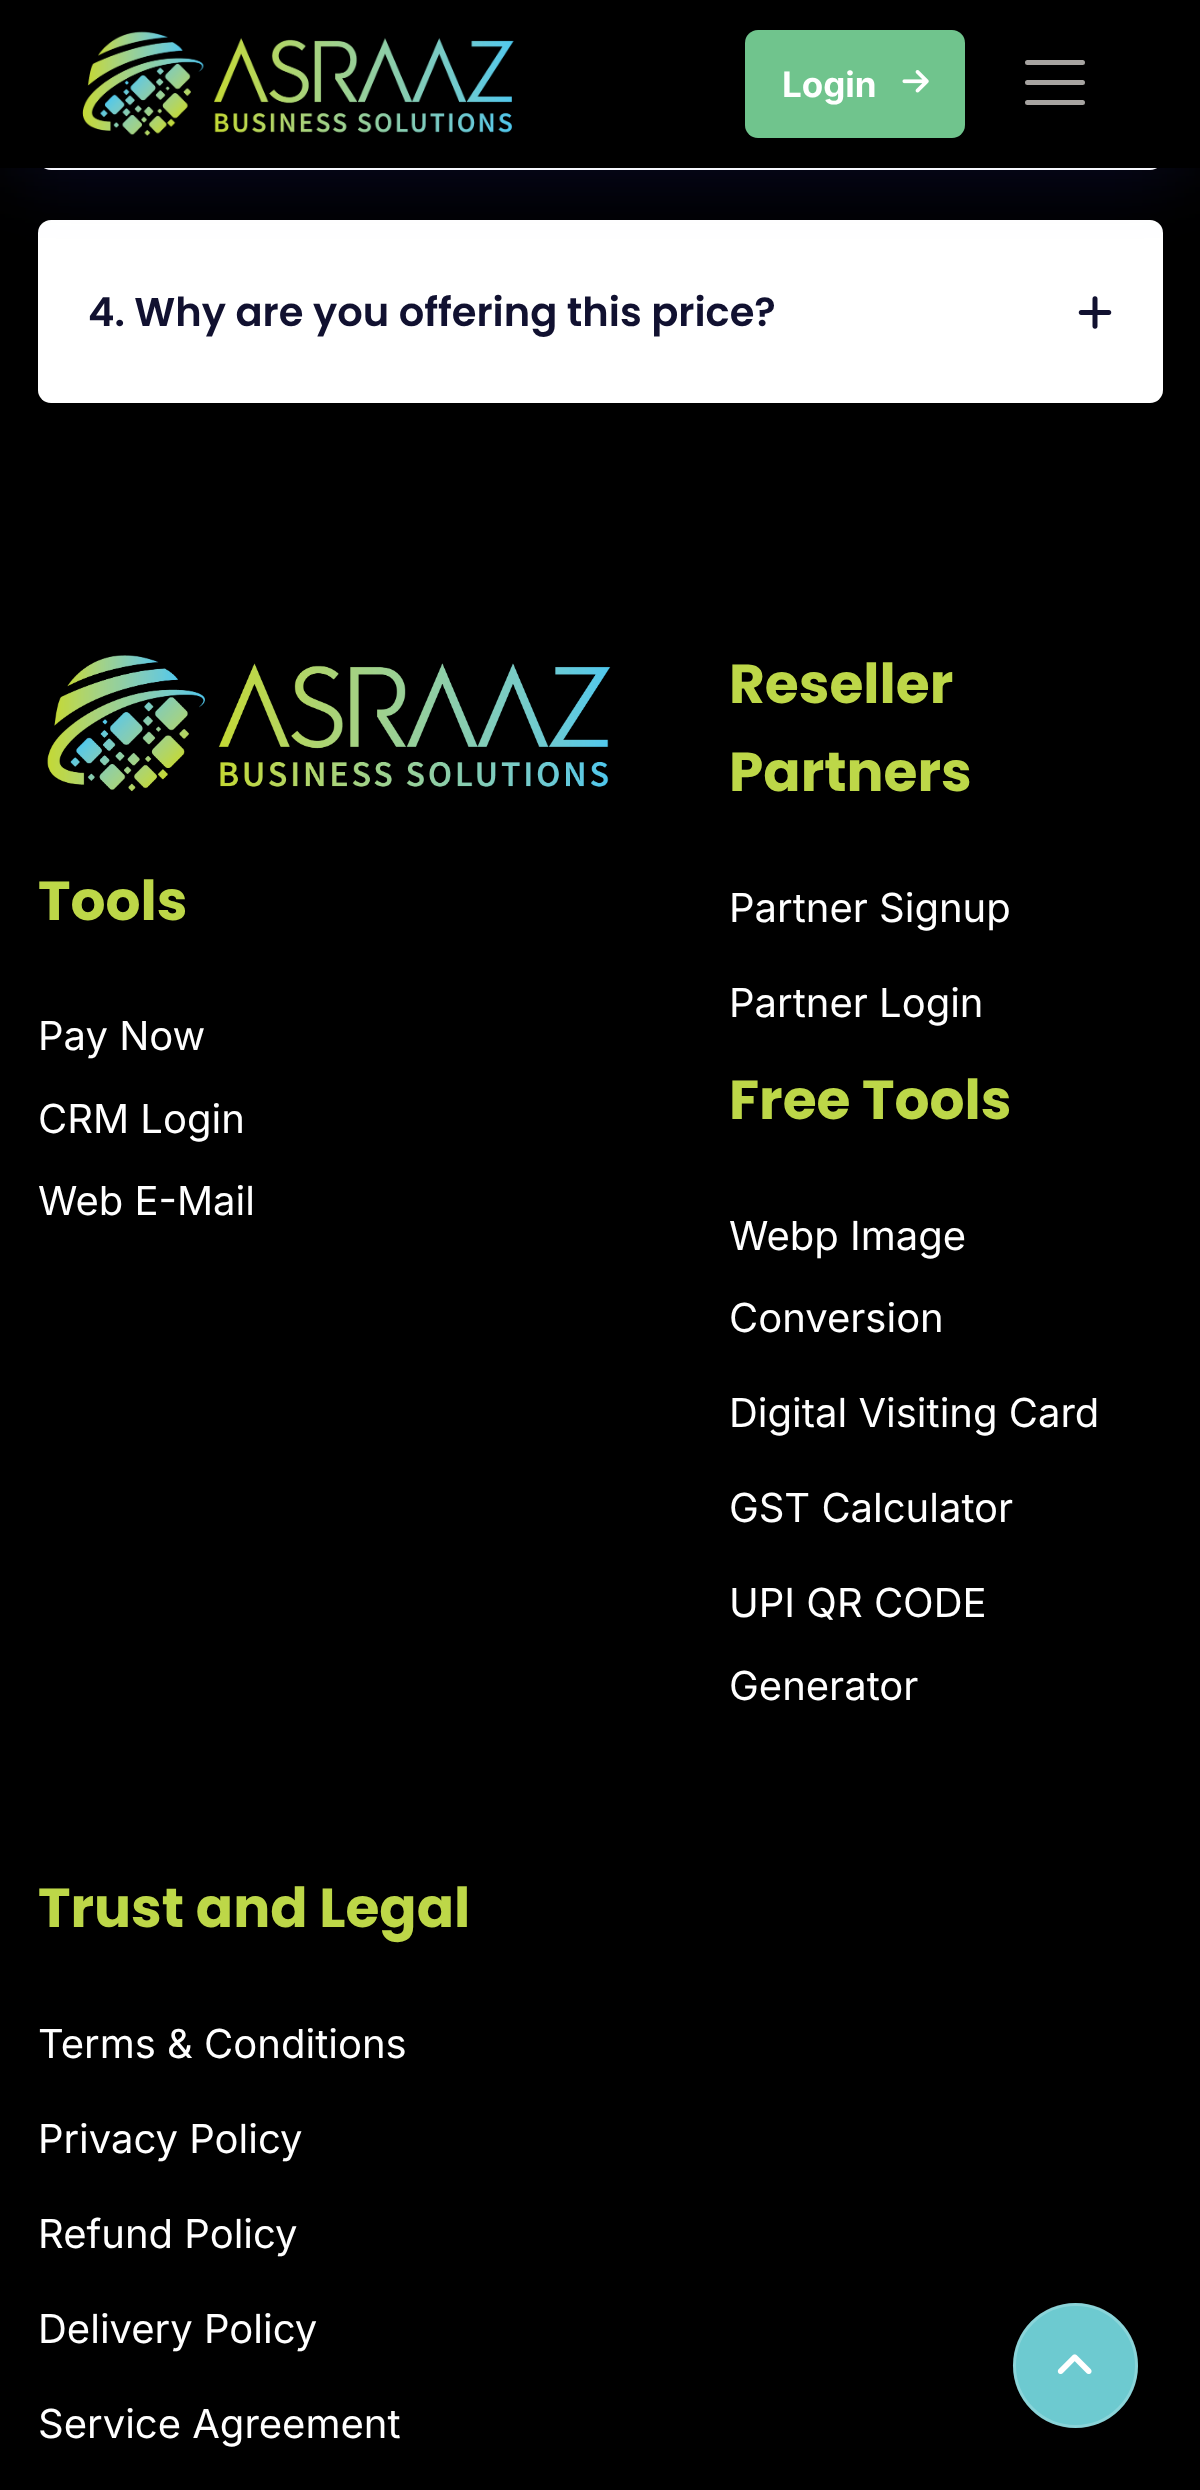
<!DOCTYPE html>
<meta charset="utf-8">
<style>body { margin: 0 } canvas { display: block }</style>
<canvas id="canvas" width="1200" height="2490"></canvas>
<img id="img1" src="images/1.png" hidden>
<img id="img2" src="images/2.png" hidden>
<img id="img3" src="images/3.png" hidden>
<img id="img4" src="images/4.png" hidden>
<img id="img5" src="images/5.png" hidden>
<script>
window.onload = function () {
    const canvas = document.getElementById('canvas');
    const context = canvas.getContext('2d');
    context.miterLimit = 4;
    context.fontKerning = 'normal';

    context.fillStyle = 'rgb(0, 0, 0)';
    context.fillRect(0, 0, 1200, 2490);
    context.fillStyle = 'rgba(0, 0, 50, 0.2)';
    context.filter = 'blur(31px)';
    context.beginPath();
    context.roundRect(38, -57, 1125, 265, 13);
    context.fill();
    context.filter = 'none';
    context.fillStyle = 'rgb(255, 255, 255)';
    context.beginPath();
    context.roundRect(38, -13, 1125, 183, 13);
    context.fill();
    context.beginPath();
    context.roundRect(38, 220, 1125, 183, 13);
    context.fill();
    context.fillStyle = 'rgba(87, 95, 245, 0.1)';
    context.filter = 'blur(37.5px)';
    context.beginPath();
    context.rect(0, 0, 1200, 168);
    context.fill();
    context.filter = 'none';
    context.fillStyle = 'rgb(0, 0, 0)';
    context.fillRect(0, 0, 1200, 168);
    context.drawImage(document.getElementById('img1'), 82, 31, 432, 105);
    context.fillStyle = 'rgb(112, 196, 141)';
    context.beginPath();
    context.roundRect(745, 30, 220, 108, 13);
    context.fill();
    context.drawImage(document.getElementById('img2'), 902, 70, 27, 23);
    context.beginPath();
    context.moveTo(1027.5, 62.5);
    context.lineTo(1082.5, 62.5);
    context.moveTo(1027.5, 82.5);
    context.lineTo(1082.5, 82.5);
    context.moveTo(1027.5, 102.5);
    context.lineTo(1082.5, 102.5);
    context.strokeStyle = 'rgb(167, 164, 161)';
    context.lineWidth = 5;
    context.lineCap = 'round';
    context.stroke();
    context.drawImage(document.getElementById('img3'), 1078, 296, 34, 33);
    context.drawImage(document.getElementById('img4'), 47, 655, 564, 137);
    context.fillStyle = 'rgb(109, 202, 208)';
    context.beginPath();
    context.arc(1075.5, 2365.5, 62.5, 0, 2 * Math.PI);
    context.fill();
    context.beginPath();
    context.arc(1075.5, 2365.5, 61, 0, 2 * Math.PI);
    context.strokeStyle = 'rgba(255, 255, 255, 0.2)';
    context.lineWidth = 3;
    context.stroke();
    context.drawImage(document.getElementById('img5'), 1057, 2354, 35, 20);
    context.font = 'bold 35px Inter';
    context.fillStyle = 'rgb(255, 255, 255)';
    context.fillText('Login', 782, 97);
    context.font = '600 40px Poppins';
    context.fillStyle = 'rgb(17, 17, 48)';
    context.fillText('4. Why are you offering this price?', 88, 326);
    context.font = 'bold 55px Poppins';
    context.fillStyle = 'rgb(189, 215, 72)';
    context.fillText('Tools', 38, 920);
    context.font = '40px Inter';
    context.fillStyle = 'rgb(255, 255, 255)';
    context.fillText('Pay Now', 38, 1050);
    context.fillText('CRM Login', 38, 1133);
    context.fillText('Web E-Mail', 38, 1215);
    context.font = 'bold 55px Poppins';
    context.fillStyle = 'rgb(189, 215, 72)';
    context.fillText('Reseller', 729, 703);
    context.fillText('Partners', 729, 791);
    context.font = '40px Inter';
    context.fillStyle = 'rgb(255, 255, 255)';
    context.fillText('Partner Signup', 729, 922);
    context.fillText('Partner Login', 729, 1017);
    context.font = 'bold 55px Poppins';
    context.fillStyle = 'rgb(189, 215, 72)';
    context.fillText('Free Tools', 729, 1119);
    context.font = '40px Inter';
    context.fillStyle = 'rgb(255, 255, 255)';
    context.fillText('Webp Image', 729, 1250);
    context.fillText('Conversion', 729, 1332);
    context.fillText('Digital Visiting Card', 729, 1427);
    context.fillText('GST Calculator', 729, 1522);
    context.fillText('UPI QR CODE', 729, 1617);
    context.fillText('Generator', 729, 1700);
    context.font = 'bold 55px Poppins';
    context.fillStyle = 'rgb(189, 215, 72)';
    context.fillText('Trust and Legal', 38, 1927);
    context.font = '40px Inter';
    context.fillStyle = 'rgb(255, 255, 255)';
    context.fillText('Terms & Conditions', 38, 2058);
    context.fillText('Privacy Policy', 38, 2153);
    context.fillText('Refund Policy', 38, 2248);
    context.fillText('Delivery Policy', 38, 2343);
    context.fillText('Service Agreement', 38, 2438);
};
</script>
